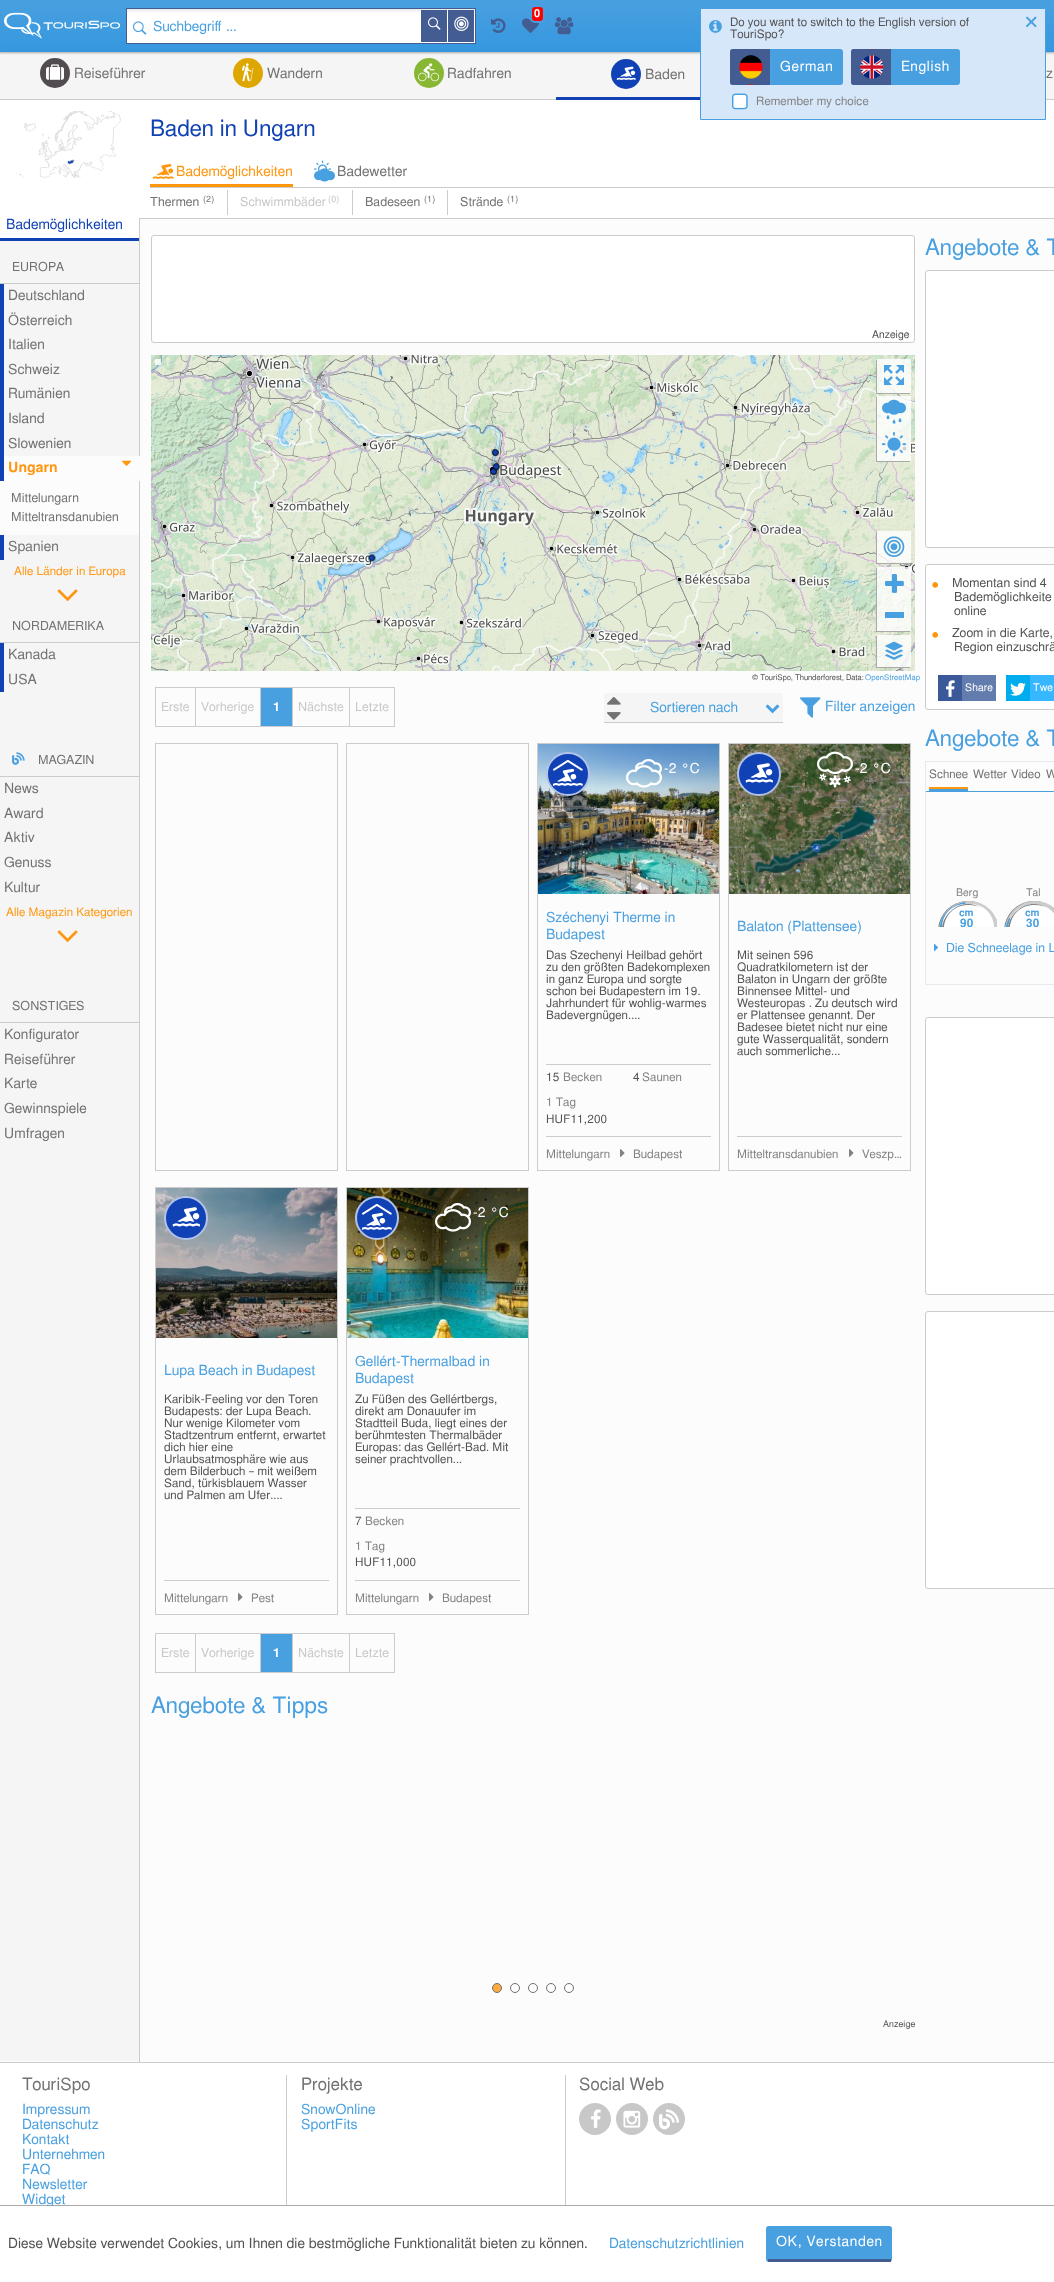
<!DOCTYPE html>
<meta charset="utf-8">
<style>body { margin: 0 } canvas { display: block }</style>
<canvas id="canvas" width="1054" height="2282"></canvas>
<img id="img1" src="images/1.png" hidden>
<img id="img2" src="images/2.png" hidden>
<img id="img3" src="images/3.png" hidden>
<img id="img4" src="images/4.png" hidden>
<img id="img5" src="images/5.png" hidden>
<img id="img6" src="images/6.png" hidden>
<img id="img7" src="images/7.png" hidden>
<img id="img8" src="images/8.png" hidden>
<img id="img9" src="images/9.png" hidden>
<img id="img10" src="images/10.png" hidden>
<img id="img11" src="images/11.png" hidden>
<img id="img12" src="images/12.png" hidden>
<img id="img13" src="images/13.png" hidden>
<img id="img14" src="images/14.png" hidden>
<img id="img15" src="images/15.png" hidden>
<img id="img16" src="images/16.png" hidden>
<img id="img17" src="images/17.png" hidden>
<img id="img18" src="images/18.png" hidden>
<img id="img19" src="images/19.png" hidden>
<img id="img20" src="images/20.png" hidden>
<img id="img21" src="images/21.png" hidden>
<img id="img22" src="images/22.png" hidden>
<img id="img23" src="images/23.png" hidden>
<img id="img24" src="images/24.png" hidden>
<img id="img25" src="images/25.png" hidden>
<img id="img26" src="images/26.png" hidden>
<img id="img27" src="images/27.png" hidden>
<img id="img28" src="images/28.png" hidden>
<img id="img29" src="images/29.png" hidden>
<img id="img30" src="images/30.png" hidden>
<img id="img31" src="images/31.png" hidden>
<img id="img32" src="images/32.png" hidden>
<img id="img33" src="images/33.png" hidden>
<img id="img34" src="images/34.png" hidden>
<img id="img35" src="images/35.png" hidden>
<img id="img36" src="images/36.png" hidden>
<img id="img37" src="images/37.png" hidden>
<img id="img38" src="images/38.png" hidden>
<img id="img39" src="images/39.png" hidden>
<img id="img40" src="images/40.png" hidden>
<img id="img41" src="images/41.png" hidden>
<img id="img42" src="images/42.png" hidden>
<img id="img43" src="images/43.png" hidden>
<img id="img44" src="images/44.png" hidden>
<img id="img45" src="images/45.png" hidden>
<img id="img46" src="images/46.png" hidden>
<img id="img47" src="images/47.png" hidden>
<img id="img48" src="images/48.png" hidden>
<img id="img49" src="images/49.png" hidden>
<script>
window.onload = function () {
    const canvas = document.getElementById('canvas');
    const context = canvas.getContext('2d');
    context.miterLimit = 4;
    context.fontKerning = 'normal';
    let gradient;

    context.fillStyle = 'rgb(255, 255, 255)';
    context.fillRect(0, 0, 1054, 2282);
    context.fillStyle = 'rgb(245, 245, 245)';
    context.fillRect(0, 52, 1054, 47);
    context.fillStyle = 'rgb(170, 170, 170)';
    context.filter = 'blur(1px)';
    context.beginPath();
    context.rect(-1, -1, 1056, 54);
    context.fill();
    context.filter = 'none';
    gradient = context.createLinearGradient(527, 0, 527, 52);
    gradient.addColorStop(0, 'rgb(73, 160, 224)');
    gradient.addColorStop(1, 'rgb(53, 151, 223)');
    context.fillStyle = gradient;
    context.fillRect(0, 0, 1054, 52);
    context.drawImage(document.getElementById('img1'), 4, 12, 116, 27);
    gradient = context.createLinearGradient(301, 9, 301, 43);
    gradient.addColorStop(0, 'rgb(231, 233, 234)');
    gradient.addColorStop(0.12, 'rgb(255, 255, 255)');
    context.fillStyle = gradient;
    context.fillRect(127, 9, 348, 34);
    context.strokeStyle = 'rgb(67, 92, 145)';
    context.strokeRect(126.5, 8.5, 349, 35);
    context.drawImage(document.getElementById('img2'), 133, 21, 14, 14);
    context.fillStyle = 'rgb(67, 92, 145)';
    context.fillRect(421, 10, 26, 32);
    context.drawImage(document.getElementById('img3'), 428, 17, 13, 13);
    context.fillRect(448, 10, 26, 32);
    context.drawImage(document.getElementById('img4'), 454, 16, 15, 15);
    context.drawImage(document.getElementById('img5'), 522, 18, 17, 15);
    context.fillStyle = 'rgb(255, 0, 0)';
    context.beginPath();
    context.roundRect(531, 6, 13, 16, 4);
    context.fill();
    context.strokeStyle = 'rgb(73, 160, 224)';
    context.lineWidth = 2;
    context.stroke();
    context.drawImage(document.getElementById('img6'), 491, 18, 15, 15);
    context.drawImage(document.getElementById('img7'), 555, 17, 19, 18);
    context.fillStyle = 'rgb(204, 204, 204)';
    context.fillRect(0, 99, 1054, 1);
    context.fillStyle = 'rgb(80, 76, 80)';
    context.beginPath();
    context.arc(55, 73, 15, 0, 2 * Math.PI);
    context.fill();
    context.drawImage(document.getElementById('img8'), 46, 64, 18, 16);
    context.fillStyle = 'rgb(221, 167, 0)';
    context.beginPath();
    context.arc(248, 73, 15, 0, 2 * Math.PI);
    context.fill();
    context.drawImage(document.getElementById('img9'), 242, 63, 12, 19);
    context.fillStyle = 'rgb(136, 183, 51)';
    context.beginPath();
    context.arc(429, 73, 15, 0, 2 * Math.PI);
    context.fill();
    context.drawImage(document.getElementById('img10'), 418, 63, 22, 19);
    context.fillStyle = 'rgb(16, 66, 181)';
    context.fillRect(556, 97, 144, 3);
    context.beginPath();
    context.arc(626, 74, 15, 0, 2 * Math.PI);
    context.fill();
    context.drawImage(document.getElementById('img11'), 616, 66, 20, 14);
    context.fillStyle = 'rgb(204, 204, 204)';
    context.fillRect(0, 2062, 1054, 1);
    context.fillStyle = 'rgb(215, 231, 250)';
    context.beginPath();
    context.rect(700.5, 8.5, 345, 111);
    context.fill();
    context.lineWidth = 1;
    context.stroke();
    context.drawImage(document.getElementById('img12'), 709, 20, 13, 13);
    context.fillStyle = 'rgb(73, 160, 224)';
    context.beginPath();
    context.roundRect(730, 49, 113, 36, 3);
    context.fill();
    context.fillStyle = 'rgb(67, 92, 145)';
    context.beginPath();
    context.roundRect(730, 49, 40, 36, [3, 0, 0, 3]);
    context.fill();
    context.drawImage(document.getElementById('img13'), 738, 55, 25, 30);
    context.fillStyle = 'rgb(73, 160, 224)';
    context.beginPath();
    context.roundRect(851, 49, 109, 36, 3);
    context.fill();
    context.fillStyle = 'rgb(67, 92, 145)';
    context.beginPath();
    context.roundRect(851, 49, 40, 36, [3, 0, 0, 3]);
    context.fill();
    context.drawImage(document.getElementById('img14'), 860, 49, 24, 30);
    context.fillStyle = 'rgb(255, 255, 255)';
    context.beginPath();
    context.roundRect(733, 94, 13, 15, 2);
    context.fill();
    context.drawImage(document.getElementById('img15'), 732, 93, 16, 17);
    context.drawImage(document.getElementById('img16'), 1026, 16, 11, 12);
    context.fillStyle = 'rgb(204, 204, 204)';
    context.fillRect(286, 2075, 1, 131);
    context.fillRect(565, 2075, 1, 131);
    context.fillStyle = 'rgb(200, 200, 200)';
    context.beginPath();
    context.arc(595, 2119, 16, 0, 2 * Math.PI);
    context.fill();
    context.drawImage(document.getElementById('img17'), 591, 2109, 10, 19);
    context.beginPath();
    context.arc(632, 2119, 16, 0, 2 * Math.PI);
    context.fill();
    context.drawImage(document.getElementById('img18'), 623, 2110, 18, 18);
    context.beginPath();
    context.arc(669, 2119, 16, 0, 2 * Math.PI);
    context.fill();
    context.drawImage(document.getElementById('img19'), 659, 2109, 20, 21);
    context.fillStyle = 'rgb(170, 170, 170)';
    context.filter = 'blur(0.5px)';
    context.beginPath();
    context.rect(0, 2205, 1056, 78);
    context.fill();
    context.filter = 'none';
    context.drawImage(document.getElementById('img20'), 16, 111, 105, 67);
    context.fillStyle = 'rgb(255, 150, 14)';
    context.fillRect(150, 184, 143, 3);
    context.drawImage(document.getElementById('img21'), 152, 164, 22, 15);
    context.drawImage(document.getElementById('img22'), 314, 160, 21, 22);
    context.fillStyle = 'rgb(204, 204, 204)';
    context.fillRect(150, 187, 904, 1);
    context.fillRect(227, 190, 1, 25);
    context.fillRect(352, 190, 1, 25);
    context.fillRect(447, 190, 1, 25);
    context.fillStyle = 'rgb(252, 252, 252)';
    context.fillRect(0, 219, 1054, 1843);
    context.fillStyle = 'rgb(204, 204, 204)';
    context.fillRect(139, 218, 915, 1);
    context.fillStyle = 'rgb(245, 245, 245)';
    context.fillRect(0, 241, 139, 1820);
    context.fillStyle = 'rgb(255, 255, 255)';
    context.fillRect(0, 219, 139, 19);
    context.fillStyle = 'rgb(16, 66, 181)';
    context.fillRect(0, 238, 139, 3);
    context.fillStyle = 'rgb(204, 204, 204)';
    context.fillRect(0, 283, 139, 1);
    context.fillStyle = 'rgb(16, 66, 181)';
    context.fillRect(0, 284, 4, 172);
    context.fillStyle = 'rgb(204, 204, 204)';
    context.fillRect(139, 219, 1, 1843);
    context.fillStyle = 'rgb(252, 252, 252)';
    context.fillRect(4, 456, 136, 25);
    context.fillStyle = 'rgb(16, 66, 181)';
    context.fillRect(0, 456, 4, 25);
    context.fillStyle = 'rgb(252, 252, 252)';
    context.fillRect(0, 481, 139, 54);
    context.drawImage(document.getElementById('img23'), 122, 460, 10, 6);
    context.fillStyle = 'rgb(16, 66, 181)';
    context.fillRect(0, 535, 4, 25);
    context.drawImage(document.getElementById('img24'), 57, 589, 21, 12);
    context.fillStyle = 'rgb(204, 204, 204)';
    context.fillRect(0, 642, 139, 1);
    context.fillStyle = 'rgb(16, 66, 181)';
    context.fillRect(0, 643, 4, 49);
    context.fillStyle = 'rgb(204, 204, 204)';
    context.fillRect(0, 776, 139, 1);
    context.drawImage(document.getElementById('img25'), 12, 752, 13, 13);
    context.drawImage(document.getElementById('img24'), 57, 930, 21, 12);
    context.fillRect(0, 1022, 139, 1);
    context.fillStyle = 'rgb(255, 255, 255)';
    context.beginPath();
    context.roundRect(151.5, 235.5, 763, 107, 2.5);
    context.fill();
    context.strokeStyle = 'rgb(204, 204, 204)';
    context.stroke();
    context.drawImage(document.getElementById('img26'), 151, 355, 764, 316);
    context.fillStyle = 'rgba(255, 255, 255, 0.8)';
    context.fillRect(155, 359, 6, 6);
    context.save();
    context.beginPath();
    context.moveTo(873, 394);
    context.lineTo(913, 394);
    context.lineTo(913, 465);
    context.lineTo(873, 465);
    context.closePath();
    context.moveTo(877, 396);
    context.lineTo(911, 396);
    context.lineTo(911, 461);
    context.lineTo(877, 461);
    context.closePath();
    context.clip('evenodd');
    context.fillStyle = 'rgb(170, 170, 170)';
    context.filter = 'blur(0.5px)';
    context.beginPath();
    context.rect(876, 397, 34, 65);
    context.fill();
    context.filter = 'none';
    context.restore();
    context.fillRect(877, 396, 34, 65);
    context.save();
    context.beginPath();
    context.moveTo(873, 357);
    context.lineTo(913, 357);
    context.lineTo(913, 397);
    context.lineTo(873, 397);
    context.closePath();
    context.moveTo(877, 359);
    context.lineTo(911, 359);
    context.lineTo(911, 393);
    context.lineTo(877, 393);
    context.closePath();
    context.clip('evenodd');
    context.fillStyle = 'rgb(170, 170, 170)';
    context.filter = 'blur(0.5px)';
    context.beginPath();
    context.rect(876, 360, 34, 34);
    context.fill();
    context.filter = 'none';
    context.restore();
    context.fillRect(877, 359, 34, 34);
    context.drawImage(document.getElementById('img27'), 884, 365, 20, 20);
    context.drawImage(document.getElementById('img28'), 882, 399, 24, 25);
    context.drawImage(document.getElementById('img29'), 881, 432, 26, 25);
    context.save();
    context.beginPath();
    context.moveTo(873, 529);
    context.lineTo(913, 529);
    context.lineTo(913, 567);
    context.lineTo(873, 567);
    context.closePath();
    context.moveTo(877, 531);
    context.lineTo(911, 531);
    context.lineTo(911, 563);
    context.lineTo(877, 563);
    context.closePath();
    context.clip('evenodd');
    context.fillStyle = 'rgb(170, 170, 170)';
    context.filter = 'blur(0.5px)';
    context.beginPath();
    context.rect(876, 532, 34, 32);
    context.fill();
    context.filter = 'none';
    context.restore();
    context.fillRect(877, 531, 34, 32);
    context.drawImage(document.getElementById('img30'), 883, 536, 22, 21);
    context.save();
    context.beginPath();
    context.moveTo(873, 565);
    context.lineTo(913, 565);
    context.lineTo(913, 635);
    context.lineTo(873, 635);
    context.closePath();
    context.moveTo(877, 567);
    context.lineTo(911, 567);
    context.lineTo(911, 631);
    context.lineTo(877, 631);
    context.closePath();
    context.clip('evenodd');
    context.fillStyle = 'rgb(170, 170, 170)';
    context.filter = 'blur(0.5px)';
    context.beginPath();
    context.rect(876, 568, 34, 64);
    context.fill();
    context.filter = 'none';
    context.restore();
    context.fillRect(877, 567, 34, 64);
    context.drawImage(document.getElementById('img31'), 885, 574, 19, 19);
    context.fillStyle = 'rgb(73, 160, 224)';
    context.fillRect(885, 612, 19, 6);
    context.save();
    context.beginPath();
    context.moveTo(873, 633);
    context.lineTo(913, 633);
    context.lineTo(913, 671);
    context.lineTo(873, 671);
    context.closePath();
    context.moveTo(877, 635);
    context.lineTo(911, 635);
    context.lineTo(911, 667);
    context.lineTo(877, 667);
    context.closePath();
    context.clip('evenodd');
    context.fillStyle = 'rgb(170, 170, 170)';
    context.filter = 'blur(0.5px)';
    context.beginPath();
    context.rect(876, 636, 34, 32);
    context.fill();
    context.filter = 'none';
    context.restore();
    context.fillStyle = 'rgba(255, 255, 255, 0.8)';
    context.fillRect(877, 635, 34, 32);
    context.drawImage(document.getElementById('img32'), 885, 641, 18, 19);
    context.fillStyle = 'rgb(245, 245, 245)';
    context.fillRect(604, 693, 179, 29);
    context.fillStyle = 'rgb(204, 204, 204)';
    context.fillRect(604, 722, 179, 1);
    context.drawImage(document.getElementById('img33'), 765, 704, 15, 10);
    context.drawImage(document.getElementById('img34'), 607, 697, 14, 8);
    context.drawImage(document.getElementById('img35'), 607, 712, 14, 8);
    context.drawImage(document.getElementById('img36'), 800, 697, 21, 21);
    context.strokeRect(155.5, 687.5, 40, 39);
    context.fillRect(196, 687, 199, 1);
    context.fillRect(260, 687, 1, 40);
    context.fillRect(196, 726, 65, 1);
    context.fillStyle = 'rgb(73, 160, 224)';
    context.fillRect(261, 688, 31, 38);
    context.fillStyle = 'rgb(204, 204, 204)';
    context.fillRect(292, 687, 1, 40);
    context.fillRect(261, 726, 32, 1);
    context.fillRect(349, 687, 1, 40);
    context.fillRect(293, 726, 57, 1);
    context.fillRect(394, 687, 1, 40);
    context.fillRect(350, 726, 45, 1);
    context.strokeRect(155.5, 743.5, 182, 427);
    context.strokeRect(346.5, 743.5, 182, 427);
    context.strokeRect(537.5, 743.5, 182, 427);
    context.drawImage(document.getElementById('img37'), 538, 744, 181, 150);
    context.fillStyle = 'rgb(16, 66, 181)';
    context.beginPath();
    context.arc(568, 774, 21, 0, 2 * Math.PI);
    context.fill();
    context.strokeStyle = 'rgb(179, 195, 231)';
    context.lineWidth = 2;
    context.stroke();
    context.drawImage(document.getElementById('img38'), 553, 759, 30, 27);
    context.drawImage(document.getElementById('img39'), 626, 759, 36, 29);
    context.fillStyle = 'rgb(204, 204, 204)';
    context.fillRect(546, 1064, 165, 1);
    context.fillRect(546, 1136, 165, 1);
    context.drawImage(document.getElementById('img40'), 620, 1149, 5, 8);
    context.strokeStyle = 'rgb(204, 204, 204)';
    context.lineWidth = 1;
    context.strokeRect(728.5, 743.5, 182, 427);
    context.drawImage(document.getElementById('img41'), 729, 744, 181, 150);
    context.fillStyle = 'rgb(16, 66, 181)';
    context.beginPath();
    context.arc(759, 774, 21, 0, 2 * Math.PI);
    context.fill();
    context.strokeStyle = 'rgb(179, 195, 231)';
    context.lineWidth = 2;
    context.stroke();
    context.drawImage(document.getElementById('img42'), 745, 763, 28, 20);
    context.drawImage(document.getElementById('img43'), 817, 751, 36, 37);
    context.fillStyle = 'rgb(204, 204, 204)';
    context.fillRect(737, 1136, 165, 1);
    context.drawImage(document.getElementById('img40'), 849, 1149, 5, 8);
    context.strokeStyle = 'rgb(204, 204, 204)';
    context.lineWidth = 1;
    context.strokeRect(155.5, 1187.5, 182, 427);
    context.drawImage(document.getElementById('img44'), 156, 1188, 181, 150);
    context.fillStyle = 'rgb(16, 66, 181)';
    context.beginPath();
    context.arc(186, 1218, 21, 0, 2 * Math.PI);
    context.fill();
    context.strokeStyle = 'rgb(179, 195, 231)';
    context.lineWidth = 2;
    context.stroke();
    context.drawImage(document.getElementById('img42'), 172, 1207, 28, 20);
    context.fillStyle = 'rgb(204, 204, 204)';
    context.fillRect(164, 1580, 165, 1);
    context.drawImage(document.getElementById('img40'), 238, 1593, 5, 8);
    context.strokeStyle = 'rgb(204, 204, 204)';
    context.lineWidth = 1;
    context.strokeRect(346.5, 1187.5, 182, 427);
    context.drawImage(document.getElementById('img45'), 347, 1188, 181, 150);
    context.fillStyle = 'rgb(16, 66, 181)';
    context.beginPath();
    context.arc(377, 1218, 21, 0, 2 * Math.PI);
    context.fill();
    context.strokeStyle = 'rgb(179, 195, 231)';
    context.lineWidth = 2;
    context.stroke();
    context.drawImage(document.getElementById('img38'), 362, 1203, 30, 27);
    context.drawImage(document.getElementById('img46'), 435, 1203, 36, 29);
    context.fillStyle = 'rgb(204, 204, 204)';
    context.fillRect(355, 1508, 165, 1);
    context.fillRect(355, 1580, 165, 1);
    context.drawImage(document.getElementById('img40'), 429, 1593, 5, 8);
    context.strokeStyle = 'rgb(204, 204, 204)';
    context.lineWidth = 1;
    context.strokeRect(155.5, 1633.5, 40, 39);
    context.fillRect(196, 1633, 199, 1);
    context.fillRect(260, 1633, 1, 40);
    context.fillRect(196, 1672, 65, 1);
    context.fillStyle = 'rgb(73, 160, 224)';
    context.fillRect(261, 1634, 31, 38);
    context.fillStyle = 'rgb(204, 204, 204)';
    context.fillRect(292, 1633, 1, 40);
    context.fillRect(261, 1672, 32, 1);
    context.fillRect(349, 1633, 1, 40);
    context.fillRect(293, 1672, 57, 1);
    context.fillRect(394, 1633, 1, 40);
    context.fillRect(350, 1672, 45, 1);
    context.fillStyle = 'rgb(255, 255, 255)';
    context.beginPath();
    context.roundRect(925.5, 270.5, 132, 277, 2.5);
    context.fill();
    context.stroke();
    context.beginPath();
    context.roundRect(925.5, 564.5, 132, 145, 2.5);
    context.fill();
    context.stroke();
    context.fillStyle = 'rgb(98, 124, 173)';
    context.fillRect(962, 675, 34, 26);
    context.fillStyle = 'rgb(59, 89, 152)';
    context.fillRect(938, 675, 24, 26);
    context.drawImage(document.getElementById('img47'), 946, 680, 9, 17);
    context.fillStyle = 'rgb(55, 183, 255)';
    context.fillRect(1030, 675, 24, 26);
    context.fillStyle = 'rgb(0, 172, 238)';
    context.fillRect(1006, 675, 24, 26);
    context.drawImage(document.getElementById('img48'), 1010, 682, 16, 14);
    context.strokeStyle = 'rgb(231, 233, 234)';
    context.strokeRect(925.5, 761.5, 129, 223);
    context.fillStyle = 'rgb(73, 160, 224)';
    context.fillRect(929, 789, 39, 2);
    context.fillStyle = 'rgb(255, 150, 14)';
    context.fillRect(929, 787, 39, 2);
    context.fillStyle = 'rgb(73, 160, 224)';
    context.fillRect(926, 791, 128, 1);
    context.drawImage(document.getElementById('img49'), 934, 943, 4, 8);
    context.save();
    context.beginPath();
    context.rect(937, 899, 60, 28);
    context.clip();
    context.fillStyle = 'rgb(130, 130, 130)';
    context.filter = 'blur(0.5px)';
    context.beginPath();
    context.roundRect(938, 901, 60, 60, 30);
    context.fill();
    context.filter = 'none';
    context.restore();
    context.save();
    context.beginPath();
    context.rect(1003, 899, 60, 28);
    context.clip();
    context.fillStyle = 'rgb(130, 130, 130)';
    context.filter = 'blur(0.5px)';
    context.beginPath();
    context.roundRect(1004, 901, 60, 60, 30);
    context.fill();
    context.filter = 'none';
    context.restore();
    context.fillStyle = 'rgb(255, 255, 255)';
    context.beginPath();
    context.roundRect(925.5, 1017.5, 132, 277, 2.5);
    context.fill();
    context.strokeStyle = 'rgb(204, 204, 204)';
    context.stroke();
    context.beginPath();
    context.roundRect(925.5, 1311.5, 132, 277, 2.5);
    context.fill();
    context.stroke();
    context.fillStyle = 'rgb(254, 170, 62)';
    context.beginPath();
    context.arc(497, 1988, 4.5, 0, 2 * Math.PI);
    context.fill();
    context.strokeStyle = 'rgb(114, 111, 114)';
    context.stroke();
    context.beginPath();
    context.arc(515, 1988, 4.5, 0, 2 * Math.PI);
    context.stroke();
    context.beginPath();
    context.arc(533, 1988, 4.5, 0, 2 * Math.PI);
    context.stroke();
    context.beginPath();
    context.arc(551, 1988, 4.5, 0, 2 * Math.PI);
    context.stroke();
    context.beginPath();
    context.arc(569, 1988, 4.5, 0, 2 * Math.PI);
    context.stroke();
    context.wordSpacing = '1px';
    context.font = '14px FreeSans';
    context.fillStyle = 'rgb(73, 160, 224)';
    context.fillText('Suchbegriff ...', 153, 31);
    context.letterSpacing = '0.15px';
    context.wordSpacing = '0px';
    context.font = '600 11px FreeSans';
    context.fillStyle = 'rgb(255, 255, 255)';
    context.fillText('0', 534, 17);
    context.font = '14px FreeSans';
    context.fillStyle = 'rgb(114, 114, 114)';
    context.fillText('Reiseführer', 74, 78);
    context.fillText('Wandern', 267, 78);
    context.fillText('Radfahren', 447, 78);
    context.fillText('Baden', 645, 79);
    context.fillText('z', 1046, 78);
    context.font = '11.75px FreeSans';
    context.fillStyle = 'rgb(82, 82, 82)';
    context.fillText('Do you want to switch to the English version of', 730, 26);
    context.fillText('TouriSpo?', 730, 38);
    context.letterSpacing = '0.75px';
    context.font = '14px FreeSans';
    context.fillStyle = 'rgb(255, 255, 255)';
    context.fillText('German', 780, 71);
    context.fillText('English', 901, 71);
    context.letterSpacing = '0.15px';
    context.font = '11.75px FreeSans';
    context.fillStyle = 'rgb(130, 130, 130)';
    context.fillText('Remember my choice', 756, 105);
    context.font = '17px FreeSans';
    context.fillStyle = 'rgb(114, 114, 114)';
    context.fillText('TouriSpo', 22, 2090);
    context.font = '14px FreeSans';
    context.fillStyle = 'rgb(73, 160, 224)';
    context.fillText('Impressum', 22, 2114);
    context.fillText('Datenschutz', 22, 2129);
    context.fillText('Kontakt', 22, 2144);
    context.fillText('Unternehmen', 22, 2159);
    context.fillText('FAQ', 22, 2174);
    context.fillText('Newsletter', 22, 2189);
    context.fillText('Widget', 22, 2204);
    context.font = '17px FreeSans';
    context.fillStyle = 'rgb(114, 114, 114)';
    context.fillText('Projekte', 301, 2090);
    context.font = '14px FreeSans';
    context.fillStyle = 'rgb(73, 160, 224)';
    context.fillText('SnowOnline', 301, 2114);
    context.fillText('SportFits', 301, 2129);
    context.font = '17px FreeSans';
    context.fillStyle = 'rgb(114, 114, 114)';
    context.fillText('Social Web', 579, 2090);
    context.fillStyle = 'rgb(255, 255, 255)';
    context.fillRect(0, 2206, 1054, 76);
    context.font = '14px FreeSans';
    context.fillStyle = 'rgb(82, 82, 82)';
    context.fillText('Diese Website verwendet Cookies, um Ihnen die bestmögliche Funktionalität bieten zu können.', 8, 2248);
    context.fillStyle = 'rgb(73, 160, 224)';
    context.fillText('Datenschutzrichtlinien', 609, 2248);
    context.beginPath();
    context.roundRect(766, 2226, 126, 36, 3);
    context.fill();
    context.fillStyle = 'rgb(67, 92, 145)';
    context.fillRect(768, 2259, 123, 3);
    context.letterSpacing = '0.75px';
    context.fillStyle = 'rgb(255, 255, 255)';
    context.fillText('OK, Verstanden', 776, 2246);
    context.letterSpacing = '0.15px';
    context.font = '22.5px FreeSans';
    context.fillStyle = 'rgb(16, 66, 181)';
    context.fillText('Baden in Ungarn', 150, 136);
    context.font = '14px FreeSans';
    context.fillStyle = 'rgb(255, 150, 14)';
    context.fillText('Bademöglichkeiten', 176, 176);
    context.fillStyle = 'rgb(114, 114, 114)';
    context.fillText('Badewetter', 337, 176);
    context.letterSpacing = '0.1px';
    context.font = '12.5px FreeSans';
    context.fillText('Thermen', 150, 206);
    context.font = '9px FreeSans';
    context.fillText('(2)', 203, 202);
    context.letterSpacing = '0.15px';
    context.font = '12.5px FreeSans';
    context.fillStyle = 'rgb(200, 200, 200)';
    context.fillText('Schwimmbäder', 240, 206);
    context.font = '9px FreeSans';
    context.fillText('(0)', 328, 202);
    context.letterSpacing = '0.1px';
    context.font = '12.5px FreeSans';
    context.fillStyle = 'rgb(114, 114, 114)';
    context.fillText('Badeseen', 365, 206);
    context.font = '9px FreeSans';
    context.fillText('(1)', 424, 202);
    context.font = '12.5px FreeSans';
    context.fillText('Strände', 460, 206);
    context.font = '9px FreeSans';
    context.fillText('(1)', 507, 202);
    context.letterSpacing = '0.15px';
    context.font = '14px FreeSans';
    context.fillStyle = 'rgb(16, 66, 181)';
    context.fillText('Bademöglichkeiten', 6, 229);
    context.letterSpacing = '0.1px';
    context.font = '12.5px FreeSans';
    context.fillStyle = 'rgb(114, 114, 114)';
    context.fillText('EUROPA', 12, 271);
    context.letterSpacing = '0.15px';
    context.font = '14px FreeSans';
    context.fillText('Deutschland', 8, 300);
    context.fillText('Österreich', 8, 325);
    context.fillText('Italien', 8, 349);
    context.fillText('Schweiz', 8, 374);
    context.fillText('Rumänien', 8, 398);
    context.fillText('Island', 8, 423);
    context.fillText('Slowenien', 8, 448);
    context.font = '600 14px FreeSans';
    context.fillStyle = 'rgb(255, 150, 14)';
    context.fillText('Ungarn', 8, 472);
    context.letterSpacing = '0.1px';
    context.font = '12.5px FreeSans';
    context.fillStyle = 'rgb(114, 114, 114)';
    context.fillText('Mittelungarn', 11, 502);
    context.fillText('Mitteltransdanubien', 11, 521);
    context.letterSpacing = '0.15px';
    context.font = '14px FreeSans';
    context.fillText('Spanien', 8, 551);
    context.font = '11.75px FreeSans';
    context.fillStyle = 'rgb(255, 150, 14)';
    context.fillText('Alle Länder in Europa', 14, 575);
    context.letterSpacing = '0.1px';
    context.font = '12.5px FreeSans';
    context.fillStyle = 'rgb(114, 114, 114)';
    context.fillText('NORDAMERIKA', 12, 630);
    context.letterSpacing = '0.15px';
    context.font = '14px FreeSans';
    context.fillText('Kanada', 8, 659);
    context.fillText('USA', 8, 684);
    context.letterSpacing = '0.1px';
    context.font = '12.5px FreeSans';
    context.fillText('MAGAZIN', 38, 764);
    context.letterSpacing = '0.15px';
    context.font = '14px FreeSans';
    context.fillText('News', 4, 793);
    context.fillText('Award', 4, 818);
    context.fillText('Aktiv', 4, 842);
    context.fillText('Genuss', 4, 867);
    context.fillText('Kultur', 4, 892);
    context.font = '11.75px FreeSans';
    context.fillStyle = 'rgb(255, 150, 14)';
    context.fillText('Alle Magazin Kategorien', 6, 916);
    context.font = '12.5px FreeSans';
    context.fillStyle = 'rgb(114, 114, 114)';
    context.fillText('SONSTIGES', 12, 1010);
    context.font = '14px FreeSans';
    context.fillText('Konfigurator', 4, 1039);
    context.fillText('Reiseführer', 4, 1064);
    context.fillText('Karte', 4, 1088);
    context.fillText('Gewinnspiele', 4, 1113);
    context.fillText('Umfragen', 4, 1138);
    context.font = '10.5px FreeSans';
    context.fillStyle = 'rgb(82, 82, 82)';
    context.fillText('Anzeige', 872, 338);
    context.letterSpacing = '0px';
    context.font = '7.75px FreeSans';
    context.fillText('© TouriSpo, Thunderforest, Data:', 752, 680);
    context.letterSpacing = '0.1px';
    context.fillStyle = 'rgb(73, 160, 224)';
    context.fillText('OpenStreetMap', 865, 680);
    context.letterSpacing = '0px';
    context.font = '14px FreeSans';
    context.fillText('Sortieren nach', 650, 712);
    context.letterSpacing = '0.15px';
    context.fillText('Filter anzeigen', 825, 711);
    context.font = '12.5px FreeSans';
    context.fillStyle = 'rgb(200, 200, 200)';
    context.fillText('Erste', 161, 711);
    context.fillText('Vorherige', 201, 711);
    context.letterSpacing = '0.1px';
    context.font = '600 12.5px FreeSans';
    context.fillStyle = 'rgb(255, 255, 255)';
    context.fillText('1', 273, 711);
    context.letterSpacing = '0.15px';
    context.font = '12.5px FreeSans';
    context.fillStyle = 'rgb(200, 200, 200)';
    context.fillText('Nächste', 298, 711);
    context.fillText('Letzte', 355, 711);
    context.font = '14px FreeSans';
    context.fillStyle = 'rgb(255, 255, 255)';
    context.fillText('-2', 664, 773);
    context.fillText('°C', 681, 773);
    context.fillStyle = 'rgb(73, 160, 224)';
    context.fillText('Széchenyi Therme in', 546, 922);
    context.fillText('Budapest', 546, 939);
    context.font = '11.75px FreeSans';
    context.fillStyle = 'rgb(82, 82, 82)';
    context.fillText('Das Szechenyi Heilbad gehört', 546, 959);
    context.fillText('zu den größten Badekomplexen', 546, 971);
    context.fillText('in ganz Europa und sorgte', 546, 983);
    context.fillText('schon bei Budapestern im 19.', 546, 995);
    context.fillText('Jahrhundert für wohlig-warmes', 546, 1007);
    context.fillText('Badevergnügen....', 546, 1019);
    context.fillText('15', 546, 1081);
    context.fillStyle = 'rgb(130, 130, 130)';
    context.fillText('Becken', 563, 1081);
    context.fillStyle = 'rgb(82, 82, 82)';
    context.fillText('4', 633, 1081);
    context.fillStyle = 'rgb(130, 130, 130)';
    context.fillText('Saunen', 642, 1081);
    context.fillText('1 Tag', 546, 1106);
    context.fillStyle = 'rgb(82, 82, 82)';
    context.fillText('HUF11,200', 546, 1123);
    context.letterSpacing = '0.1px';
    context.fillStyle = 'rgb(130, 130, 130)';
    context.fillText('Mittelungarn', 546, 1158);
    context.fillText('Budapest', 633, 1158);
    context.letterSpacing = '0.15px';
    context.font = '14px FreeSans';
    context.fillStyle = 'rgb(255, 255, 255)';
    context.fillText('-2', 855, 773);
    context.fillText('°C', 872, 773);
    context.fillStyle = 'rgb(73, 160, 224)';
    context.fillText('Balaton (Plattensee)', 737, 931);
    context.font = '11.75px FreeSans';
    context.fillStyle = 'rgb(82, 82, 82)';
    context.fillText('Mit seinen 596', 737, 959);
    context.fillText('Quadratkilometern ist der', 737, 971);
    context.fillText('Balaton in Ungarn der größte', 737, 983);
    context.fillText('Binnensee Mittel- und', 737, 995);
    context.fillText('Westeuropas . Zu deutsch wird', 737, 1007);
    context.fillText('er Plattensee genannt. Der', 737, 1019);
    context.fillText('Badesee bietet nicht nur eine', 737, 1031);
    context.fillText('gute Wasserqualität, sondern', 737, 1043);
    context.fillText('auch sommerliche...', 737, 1055);
    context.letterSpacing = '0.1px';
    context.fillStyle = 'rgb(130, 130, 130)';
    context.fillText('Mitteltransdanubien', 737, 1158);
    context.fillText('Veszp…', 862, 1158);
    context.letterSpacing = '0.15px';
    context.font = '14px FreeSans';
    context.fillStyle = 'rgb(73, 160, 224)';
    context.fillText('Lupa Beach in Budapest', 164, 1375);
    context.font = '11.75px FreeSans';
    context.fillStyle = 'rgb(82, 82, 82)';
    context.fillText('Karibik-Feeling vor den Toren', 164, 1403);
    context.fillText('Budapests: der Lupa Beach.', 164, 1415);
    context.fillText('Nur wenige Kilometer vom', 164, 1427);
    context.fillText('Stadtzentrum entfernt, erwartet', 164, 1439);
    context.fillText('dich hier eine', 164, 1451);
    context.fillText('Urlaubsatmosphäre wie aus', 164, 1463);
    context.fillText('dem Bilderbuch – mit weißem', 164, 1475);
    context.fillText('Sand, türkisblauem Wasser', 164, 1487);
    context.fillText('und Palmen am Ufer....', 164, 1499);
    context.letterSpacing = '0.1px';
    context.fillStyle = 'rgb(130, 130, 130)';
    context.fillText('Mittelungarn', 164, 1602);
    context.fillText('Pest', 251, 1602);
    context.letterSpacing = '0.15px';
    context.font = '14px FreeSans';
    context.fillStyle = 'rgb(255, 255, 255)';
    context.fillText('-2', 473, 1217);
    context.fillText('°C', 490, 1217);
    context.fillStyle = 'rgb(73, 160, 224)';
    context.fillText('Gellért-Thermalbad in', 355, 1366);
    context.fillText('Budapest', 355, 1383);
    context.font = '11.75px FreeSans';
    context.fillStyle = 'rgb(82, 82, 82)';
    context.fillText('Zu Füßen des Gellértbergs,', 355, 1403);
    context.fillText('direkt am Donauufer im', 355, 1415);
    context.fillText('Stadtteil Buda, liegt eines der', 355, 1427);
    context.fillText('berühmtesten Thermalbäder', 355, 1439);
    context.fillText('Europas: das Gellért-Bad. Mit', 355, 1451);
    context.fillText('seiner prachtvollen...', 355, 1463);
    context.fillText('7', 355, 1525);
    context.fillStyle = 'rgb(130, 130, 130)';
    context.fillText('Becken', 365, 1525);
    context.fillText('1 Tag', 355, 1550);
    context.fillStyle = 'rgb(82, 82, 82)';
    context.fillText('HUF11,000', 355, 1566);
    context.letterSpacing = '0.1px';
    context.fillStyle = 'rgb(130, 130, 130)';
    context.fillText('Mittelungarn', 355, 1602);
    context.fillText('Budapest', 442, 1602);
    context.letterSpacing = '0.15px';
    context.font = '12.5px FreeSans';
    context.fillStyle = 'rgb(200, 200, 200)';
    context.fillText('Erste', 161, 1657);
    context.fillText('Vorherige', 201, 1657);
    context.letterSpacing = '0.1px';
    context.font = '600 12.5px FreeSans';
    context.fillStyle = 'rgb(255, 255, 255)';
    context.fillText('1', 273, 1657);
    context.letterSpacing = '0.15px';
    context.font = '12.5px FreeSans';
    context.fillStyle = 'rgb(200, 200, 200)';
    context.fillText('Nächste', 298, 1657);
    context.fillText('Letzte', 355, 1657);
    context.font = '22.5px FreeSans';
    context.fillStyle = 'rgb(73, 160, 224)';
    context.fillText('Angebote & T', 925, 255);
    context.font = '16px FreeSans';
    context.fillStyle = 'rgb(255, 150, 14)';
    context.fillText('•', 932, 589);
    context.font = '12.5px FreeSans';
    context.fillStyle = 'rgb(82, 82, 82)';
    context.fillText('Momentan sind 4', 952, 587);
    context.fillText('Bademöglichkeite', 954, 601);
    context.fillText('online', 954, 615);
    context.font = '16px FreeSans';
    context.fillStyle = 'rgb(255, 150, 14)';
    context.fillText('•', 932, 639);
    context.font = '12.5px FreeSans';
    context.fillStyle = 'rgb(82, 82, 82)';
    context.fillText('Zoom in die Karte,', 952, 637);
    context.fillText('Region einzuschrä', 954, 651);
    context.font = '10.5px FreeSans';
    context.fillStyle = 'rgb(255, 255, 255)';
    context.fillText('Share', 965, 691);
    context.fillText('Twe', 1033, 691);
    context.font = '22.5px FreeSans';
    context.fillStyle = 'rgb(73, 160, 224)';
    context.fillText('Angebote & T', 925, 746);
    context.letterSpacing = '0.1px';
    context.font = '11.75px FreeSans';
    context.fillStyle = 'rgb(114, 114, 114)';
    context.fillText('Schnee', 929, 778);
    context.fillText('Wetter', 973, 778);
    context.fillText('Video', 1011, 778);
    context.fillText('W', 1046, 778);
    context.letterSpacing = '0.15px';
    context.font = '10.5px FreeSans';
    context.fillStyle = 'rgb(130, 130, 130)';
    context.fillText('Berg', 956, 896);
    context.fillText('Tal', 1026, 896);
    context.letterSpacing = '0.1px';
    context.font = '12.5px FreeSans';
    context.fillStyle = 'rgb(73, 160, 224)';
    context.fillText('Die Schneelage in L', 946, 952);
    context.save();
    context.beginPath();
    context.rect(1003, 899, 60, 28);
    context.clip();
    context.fillStyle = 'rgb(204, 204, 204)';
    context.beginPath();
    context.arc(1035, 931, 30, 0, 2 * Math.PI);
    context.fill();
    context.fillStyle = 'rgb(73, 160, 224)';
    context.beginPath();
    context.moveTo(1022, 958);
    context.bezierCurveTo(1036, 966, 1054, 960, 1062, 945);
    context.lineTo(1009, 918);
    context.bezierCurveTo(1001, 933, 1007, 951, 1022, 958);
    context.closePath();
    context.fill();
    context.restore();
    context.fillStyle = 'rgb(255, 255, 255)';
    context.beginPath();
    context.moveTo(1034, 904);
    context.bezierCurveTo(1048.5, 904, 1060, 915.5, 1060, 930);
    context.lineTo(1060, 927);
    context.lineTo(1008, 927);
    context.lineTo(1008, 930);
    context.bezierCurveTo(1008, 915.5, 1019.5, 904, 1034, 904);
    context.closePath();
    context.fill();
    context.save();
    context.beginPath();
    context.rect(1003, 899, 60, 28);
    context.clip();
    context.fillStyle = 'rgb(130, 130, 130)';
    context.beginPath();
    context.moveTo(1035, 905);
    context.bezierCurveTo(1040, 905, 1045, 906, 1049, 909);
    context.bezierCurveTo(1024, 891, 994, 925, 1015, 947);
    context.bezierCurveTo(1004, 932, 1010, 905, 1035, 905);
    context.closePath();
    context.fill();
    context.letterSpacing = '0.15px';
    context.font = '600 11.75px FreeSans';
    context.fillStyle = 'rgb(73, 160, 224)';
    context.fillText('30', 1026, 927);
    context.restore();
    context.letterSpacing = '0.15px';
    context.font = '600 10px FreeSans';
    context.fillStyle = 'rgb(73, 160, 224)';
    context.fillText('cm', 1025, 916);
    context.save();
    context.beginPath();
    context.rect(937, 899, 60, 28);
    context.clip();
    context.fillStyle = 'rgb(204, 204, 204)';
    context.beginPath();
    context.arc(969, 931, 30, 0, 2 * Math.PI);
    context.fill();
    context.fillStyle = 'rgb(73, 160, 224)';
    context.beginPath();
    context.moveTo(940, 936);
    context.bezierCurveTo(942, 952, 958, 964, 974, 961);
    context.lineTo(965, 902);
    context.bezierCurveTo(948, 905, 937, 919, 940, 936);
    context.closePath();
    context.fill();
    context.restore();
    context.fillStyle = 'rgb(255, 255, 255)';
    context.beginPath();
    context.roundRect(942, 904, 52, 23, [26, 26, 0, 0]);
    context.fill();
    context.save();
    context.beginPath();
    context.rect(937, 899, 60, 28);
    context.clip();
    context.fillStyle = 'rgb(130, 130, 130)';
    context.beginPath();
    context.moveTo(969, 905);
    context.bezierCurveTo(974, 905, 979, 906, 983, 909);
    context.bezierCurveTo(958, 891, 928, 925, 949, 947);
    context.bezierCurveTo(938, 932, 944, 905, 969, 905);
    context.closePath();
    context.fill();
    context.font = '600 11.75px FreeSans';
    context.fillStyle = 'rgb(73, 160, 224)';
    context.fillText('90', 960, 927);
    context.restore();
    context.fillStyle = 'rgb(73, 160, 224)';
    context.fillText('cm', 959, 916);
    context.font = '22.5px FreeSans';
    context.fillText('Angebote & Tipps', 151, 1713);
    context.font = '9px FreeSans';
    context.fillStyle = 'rgb(82, 82, 82)';
    context.fillText('Anzeige', 883, 2027);
};
</script>
